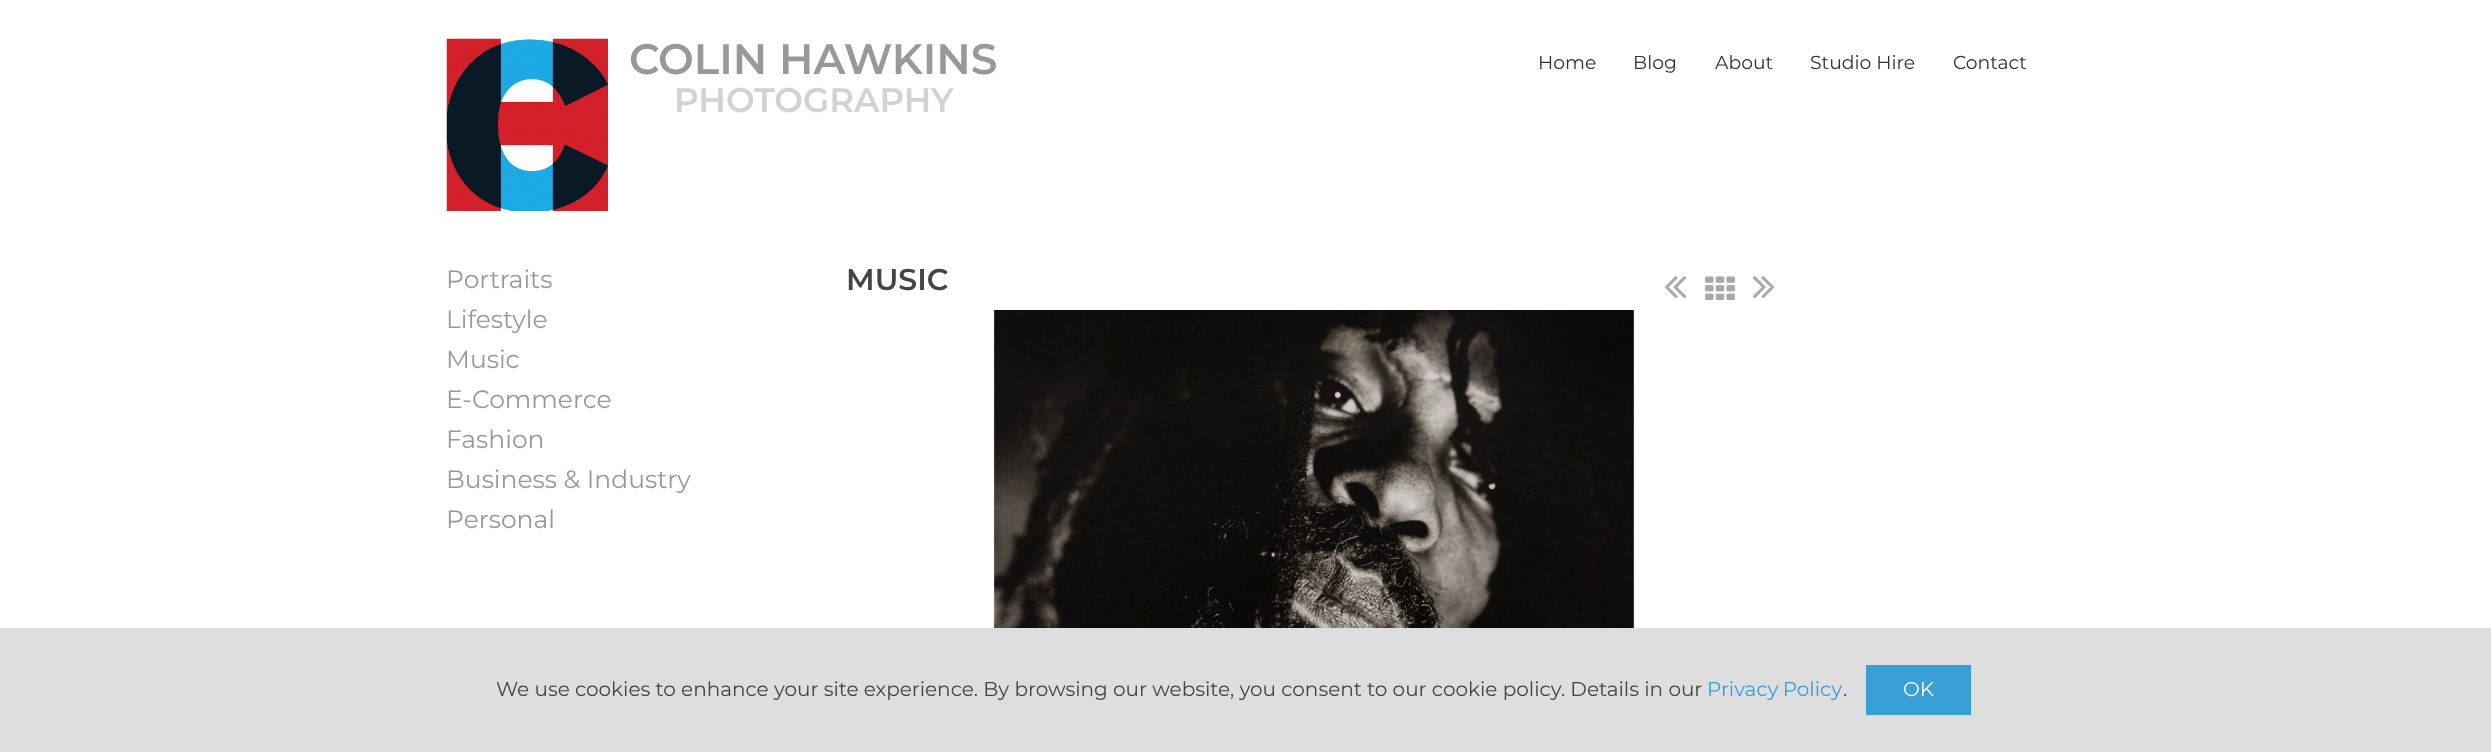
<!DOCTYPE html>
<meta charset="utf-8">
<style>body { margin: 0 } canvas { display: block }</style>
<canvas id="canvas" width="2491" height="752"></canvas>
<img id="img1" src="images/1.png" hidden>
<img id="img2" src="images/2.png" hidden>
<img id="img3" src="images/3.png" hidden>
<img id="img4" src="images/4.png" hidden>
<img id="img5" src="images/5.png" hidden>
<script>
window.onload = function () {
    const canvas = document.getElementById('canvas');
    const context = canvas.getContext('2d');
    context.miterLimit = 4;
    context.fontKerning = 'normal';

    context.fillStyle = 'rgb(255, 255, 255)';
    context.fillRect(0, 0, 2491, 752);
    context.drawImage(document.getElementById('img1'), 446, 38, 162, 173);
    context.drawImage(document.getElementById('img2'), 1664, 276, 23, 23);
    context.drawImage(document.getElementById('img3'), 1705, 276, 30, 24);
    context.drawImage(document.getElementById('img4'), 1752, 276, 23, 23);
    context.drawImage(document.getElementById('img5'), 993, 310, 642, 318);
    context.fillStyle = 'rgb(222, 222, 222)';
    context.fillRect(0, 628, 2491, 124);
    context.fillStyle = 'rgb(56, 159, 215)';
    context.fillRect(1866, 665, 105, 50);
    context.font = '600 42.5px Montserrat';
    context.fillStyle = 'rgb(153, 153, 153)';
    context.fillText('COLIN HAWKINS', 629, 74);
    context.font = '600 34px Montserrat';
    context.fillStyle = 'rgb(210, 210, 210)';
    context.fillText('PHOTOGRAPHY', 674, 112);
    context.font = '18.75px Montserrat';
    context.fillStyle = 'rgb(51, 51, 51)';
    context.fillText('Home', 1538, 69);
    context.fillText('Blog', 1633, 69);
    context.fillText('About', 1715, 69);
    context.fillText('Studio Hire', 1810, 69);
    context.fillText('Contact', 1953, 69);
    context.font = '25px Montserrat';
    context.fillStyle = 'rgb(153, 153, 153)';
    context.fillText('Portraits', 446, 288);
    context.fillText('Lifestyle', 446, 328);
    context.fillText('Music', 446, 368);
    context.fillText('E-Commerce', 446, 408);
    context.fillText('Fashion', 446, 448);
    context.fillText('Business & Industry', 446, 488);
    context.fillText('Personal', 446, 528);
    context.font = '600 30px Montserrat';
    context.fillStyle = 'rgb(68, 68, 68)';
    context.fillText('MUSIC', 846, 290);
    context.font = '20px Montserrat';
    context.fillText('We use cookies to enhance your site experience. By browsing our website, you consent to our cookie policy. Details in our', 496, 696);
    context.wordSpacing = '-1px';
    context.fillStyle = 'rgb(56, 159, 216)';
    context.fillText('Privacy Policy', 1707, 696);
    context.wordSpacing = '0px';
    context.fillStyle = 'rgb(68, 68, 68)';
    context.fillText('.', 1843, 696);
    context.fillStyle = 'rgb(255, 255, 255)';
    context.fillText('OK', 1903, 696);
};
</script>
